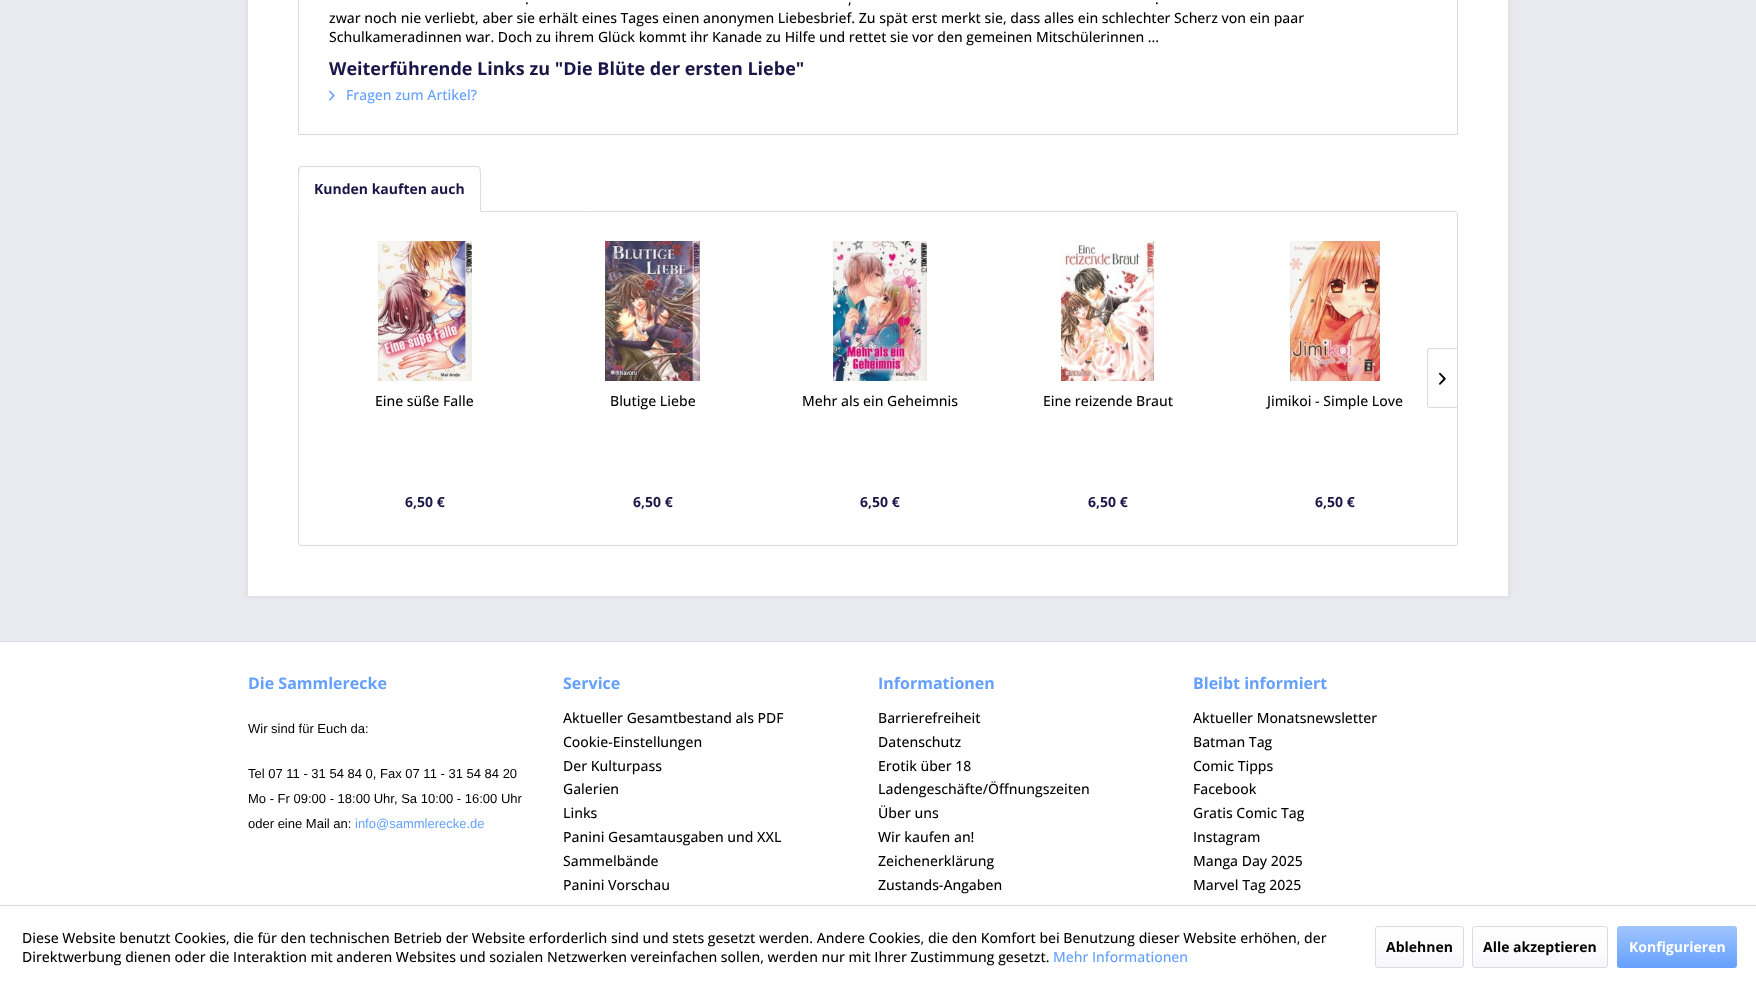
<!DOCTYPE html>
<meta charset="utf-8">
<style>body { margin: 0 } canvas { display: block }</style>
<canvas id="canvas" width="1756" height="988"></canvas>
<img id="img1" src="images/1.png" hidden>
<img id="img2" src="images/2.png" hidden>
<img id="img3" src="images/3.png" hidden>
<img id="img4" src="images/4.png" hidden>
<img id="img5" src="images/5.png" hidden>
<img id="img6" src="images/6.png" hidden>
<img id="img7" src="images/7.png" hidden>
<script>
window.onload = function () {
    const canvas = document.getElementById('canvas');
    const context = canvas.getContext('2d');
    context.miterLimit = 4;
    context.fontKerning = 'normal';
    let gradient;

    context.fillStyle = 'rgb(233, 233, 240)';
    context.fillRect(0, 0, 1756, 988);
    context.fillStyle = 'rgb(218, 218, 229)';
    context.filter = 'blur(2px)';
    context.beginPath();
    context.rect(247, -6, 1262, 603);
    context.fill();
    context.filter = 'none';
    context.fillStyle = 'rgb(255, 255, 255)';
    context.fillRect(248, 0, 1260, 596);
    context.strokeStyle = 'rgb(218, 218, 229)';
    context.strokeRect(298.5, -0.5, 1159, 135);
    context.drawImage(document.getElementById('img1'), 329, 90, 6, 11);
    context.beginPath();
    context.roundRect(298.5, 211.5, 1159, 334, 2.5);
    context.stroke();
    context.beginPath();
    context.roundRect(298, 166, 183, 46, [3, 3, 0, 0]);
    context.fill();
    context.fillStyle = 'rgb(218, 218, 229)';
    context.beginPath();
    context.moveTo(301, 166);
    context.lineTo(299, 167);
    context.lineTo(300, 168);
    context.lineTo(301, 167);
    context.lineTo(478, 167);
    context.lineTo(479, 168);
    context.lineTo(480, 167);
    context.lineTo(478, 166);
    context.closePath();
    context.fill();
    context.beginPath();
    context.moveTo(481, 212);
    context.bezierCurveTo(481, 207, 482, 169, 480, 167);
    context.lineTo(479, 168);
    context.bezierCurveTo(481, 169, 480, 206, 480, 211);
    context.closePath();
    context.fill();
    context.fillStyle = 'rgb(255, 255, 255)';
    context.beginPath();
    context.moveTo(481, 212);
    context.lineTo(480, 211);
    context.lineTo(299, 211);
    context.lineTo(298, 212);
    context.closePath();
    context.fill();
    context.fillStyle = 'rgb(218, 218, 229)';
    context.beginPath();
    context.moveTo(298, 212);
    context.lineTo(299, 211);
    context.bezierCurveTo(299, 206, 298, 169, 300, 168);
    context.lineTo(299, 167);
    context.lineTo(298, 169);
    context.closePath();
    context.fill();
    context.beginPath();
    context.moveTo(1430, 348);
    context.lineTo(1457, 348);
    context.lineTo(1457, 408);
    context.lineTo(1430, 408);
    context.bezierCurveTo(1428, 408, 1427, 407, 1427, 405);
    context.lineTo(1427, 351);
    context.bezierCurveTo(1427, 349, 1428, 348, 1430, 348);
    context.closePath();
    context.moveTo(1430, 349);
    context.lineTo(1457, 349);
    context.lineTo(1457, 407);
    context.lineTo(1430, 407);
    context.bezierCurveTo(1429, 407, 1428, 406, 1428, 405);
    context.lineTo(1428, 351);
    context.bezierCurveTo(1428, 350, 1429, 349, 1430, 349);
    context.closePath();
    context.fill('evenodd');
    context.drawImage(document.getElementById('img2'), 1439, 372, 7, 13);
    context.drawImage(document.getElementById('img3'), 378, 241, 94, 140);
    context.drawImage(document.getElementById('img4'), 605, 241, 95, 140);
    context.drawImage(document.getElementById('img5'), 833, 241, 94, 140);
    context.drawImage(document.getElementById('img6'), 1061, 241, 93, 140);
    context.drawImage(document.getElementById('img7'), 1290, 241, 90, 140);
    context.fillStyle = 'rgb(255, 255, 255)';
    context.fillRect(0, 642, 1756, 263);
    context.fillStyle = 'rgb(218, 218, 229)';
    context.fillRect(0, 641, 1756, 1);
    context.fillStyle = 'rgb(255, 255, 255)';
    context.fillRect(0, 906, 1756, 82);
    context.fillStyle = 'rgb(218, 218, 229)';
    context.fillRect(0, 905, 1756, 1);
    gradient = context.createLinearGradient(1420, 927, 1420, 967);
    gradient.addColorStop(0, 'rgb(255, 255, 255)');
    gradient.addColorStop(1, 'rgb(248, 248, 250)');
    context.fillStyle = gradient;
    context.beginPath();
    context.roundRect(1376, 927, 87, 40, 2);
    context.fill();
    context.beginPath();
    context.roundRect(1375.5, 926.5, 88, 41, 2.5);
    context.stroke();
    gradient = context.createLinearGradient(1540, 927, 1540, 967);
    gradient.addColorStop(0, 'rgb(255, 255, 255)');
    gradient.addColorStop(1, 'rgb(248, 248, 250)');
    context.fillStyle = gradient;
    context.beginPath();
    context.roundRect(1473, 927, 134, 40, 2);
    context.fill();
    context.beginPath();
    context.roundRect(1472.5, 926.5, 135, 41, 2.5);
    context.stroke();
    gradient = context.createLinearGradient(1677, 926, 1677, 968);
    gradient.addColorStop(0, 'rgb(160, 197, 255)');
    gradient.addColorStop(1, 'rgb(101, 160, 253)');
    context.fillStyle = gradient;
    context.beginPath();
    context.roundRect(1617, 926, 120, 42, 3);
    context.fill();
    context.font = '500 14px Open Sans';
    context.fillStyle = 'rgb(0, 0, 0)';
    context.fillText('.', 525, 4);
    context.fillText(',', 848, 4);
    context.fillText('.', 1155, 4);
    context.fillText('zwar noch nie verliebt, aber sie erhält eines Tages einen anonymen Liebesbrief. Zu spät erst merkt sie, dass alles ein schlechter Scherz von ein paar', 329, 23);
    context.fillText('Schulkameradinnen war. Doch zu ihrem Glück kommt ihr Kanade zu Hilfe und rettet sie vor den gemeinen Mitschülerinnen ...', 329, 42);
    context.font = 'bold 18px Open Sans';
    context.fillStyle = 'rgb(27, 21, 72)';
    context.fillText('Weiterführende Links zu "Die Blüte der ersten Liebe"', 329, 75);
    context.font = '500 14px Open Sans';
    context.fillStyle = 'rgb(101, 160, 253)';
    context.fillText('Fragen zum Artikel?', 346, 100);
    context.font = 'bold 14px Open Sans';
    context.fillStyle = 'rgb(27, 21, 72)';
    context.fillText('Kunden kauften auch', 314, 194);
    context.font = '500 14px Open Sans';
    context.fillStyle = 'rgb(0, 0, 0)';
    context.fillText('Eine süße Falle', 375, 406);
    context.font = 'bold 14px Open Sans';
    context.fillStyle = 'rgb(27, 21, 72)';
    context.fillText('6,50 €', 405, 507);
    context.font = '500 14px Open Sans';
    context.fillStyle = 'rgb(0, 0, 0)';
    context.fillText('Blutige Liebe', 610, 406);
    context.font = 'bold 14px Open Sans';
    context.fillStyle = 'rgb(27, 21, 72)';
    context.fillText('6,50 €', 633, 507);
    context.font = '500 14px Open Sans';
    context.fillStyle = 'rgb(0, 0, 0)';
    context.fillText('Mehr als ein Geheimnis', 802, 406);
    context.font = 'bold 14px Open Sans';
    context.fillStyle = 'rgb(27, 21, 72)';
    context.fillText('6,50 €', 860, 507);
    context.font = '500 14px Open Sans';
    context.fillStyle = 'rgb(0, 0, 0)';
    context.fillText('Eine reizende Braut', 1043, 406);
    context.font = 'bold 14px Open Sans';
    context.fillStyle = 'rgb(27, 21, 72)';
    context.fillText('6,50 €', 1088, 507);
    context.font = '500 14px Open Sans';
    context.fillStyle = 'rgb(0, 0, 0)';
    context.fillText('Jimikoi - Simple Love', 1267, 406);
    context.font = 'bold 14px Open Sans';
    context.fillStyle = 'rgb(27, 21, 72)';
    context.fillText('6,50 €', 1315, 507);
    context.font = 'bold 16px Open Sans';
    context.fillStyle = 'rgb(101, 160, 253)';
    context.fillText('Die Sammlerecke', 248, 689);
    context.font = '13px Liberation Sans';
    context.fillStyle = 'rgb(0, 0, 0)';
    context.fillText('Wir sind für Euch da:', 248, 733);
    context.fillText('Tel 07 11 - 31 54 84 0, Fax 07 11 - 31 54 84 20', 248, 778);
    context.fillText('Mo - Fr 09:00 - 18:00 Uhr, Sa 10:00 - 16:00 Uhr', 248, 803);
    context.fillText('oder eine Mail an:', 248, 828);
    context.fillStyle = 'rgb(101, 160, 253)';
    context.fillText('info@sammlerecke.de', 355, 828);
    context.font = 'bold 16px Open Sans';
    context.fillText('Service', 563, 689);
    context.font = '500 14px Open Sans';
    context.fillStyle = 'rgb(0, 0, 0)';
    context.fillText('Aktueller Gesamtbestand als PDF', 563, 723);
    context.fillText('Cookie-Einstellungen', 563, 747);
    context.fillText('Der Kulturpass', 563, 771);
    context.fillText('Galerien', 563, 794);
    context.fillText('Links', 563, 818);
    context.fillText('Panini Gesamtausgaben und XXL', 563, 842);
    context.fillText('Sammelbände', 563, 866);
    context.fillText('Panini Vorschau', 563, 890);
    context.font = 'bold 16px Open Sans';
    context.fillStyle = 'rgb(101, 160, 253)';
    context.fillText('Informationen', 878, 689);
    context.font = '500 14px Open Sans';
    context.fillStyle = 'rgb(0, 0, 0)';
    context.fillText('Barrierefreiheit', 878, 723);
    context.fillText('Datenschutz', 878, 747);
    context.fillText('Erotik über 18', 878, 771);
    context.fillText('Ladengeschäfte/Öffnungszeiten', 878, 794);
    context.fillText('Über uns', 878, 818);
    context.fillText('Wir kaufen an!', 878, 842);
    context.fillText('Zeichenerklärung', 878, 866);
    context.fillText('Zustands-Angaben', 878, 890);
    context.font = 'bold 16px Open Sans';
    context.fillStyle = 'rgb(101, 160, 253)';
    context.fillText('Bleibt informiert', 1193, 689);
    context.font = '500 14px Open Sans';
    context.fillStyle = 'rgb(0, 0, 0)';
    context.fillText('Aktueller Monatsnewsletter', 1193, 723);
    context.fillText('Batman Tag', 1193, 747);
    context.fillText('Comic Tipps', 1193, 771);
    context.fillText('Facebook', 1193, 794);
    context.fillText('Gratis Comic Tag', 1193, 818);
    context.fillText('Instagram', 1193, 842);
    context.fillText('Manga Day 2025', 1193, 866);
    context.fillText('Marvel Tag 2025', 1193, 890);
    context.fillText('Diese Website benutzt Cookies, die für den technischen Betrieb der Website erforderlich sind und stets gesetzt werden. Andere Cookies, die den Komfort bei Benutzung dieser Website erhöhen, der', 22, 943);
    context.fillText('Direktwerbung dienen oder die Interaktion mit anderen Websites und sozialen Netzwerken vereinfachen sollen, werden nur mit Ihrer Zustimmung gesetzt.', 22, 962);
    context.fillStyle = 'rgb(101, 160, 253)';
    context.fillText('Mehr Informationen', 1053, 962);
    context.font = 'bold 14px Open Sans';
    context.fillStyle = 'rgb(0, 0, 0)';
    context.fillText('Ablehnen', 1386, 952);
    context.fillText('Alle akzeptieren', 1483, 952);
    context.fillStyle = 'rgb(255, 255, 255)';
    context.fillText('Konfigurieren', 1629, 952);
};
</script>
